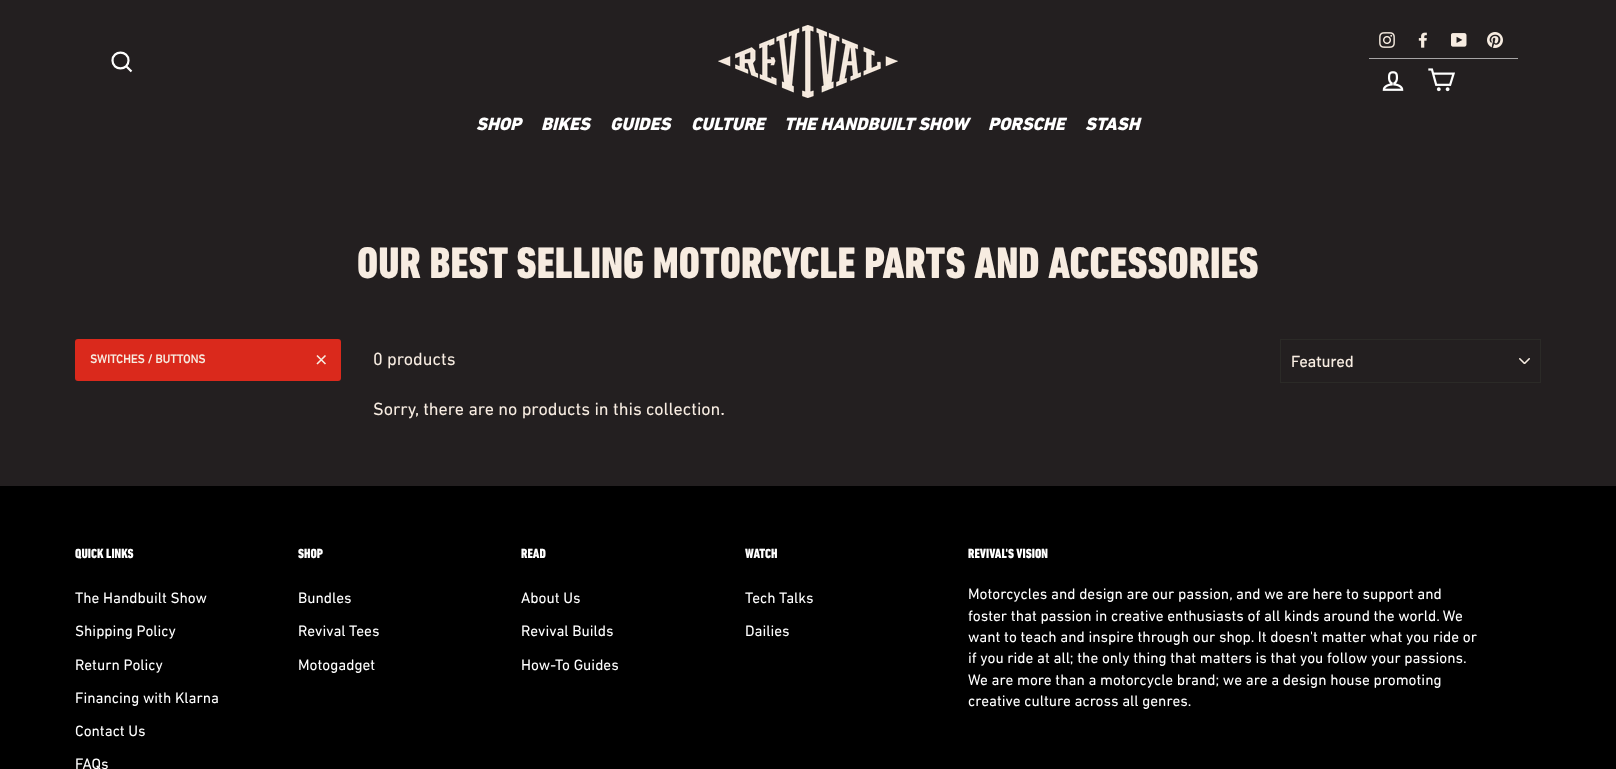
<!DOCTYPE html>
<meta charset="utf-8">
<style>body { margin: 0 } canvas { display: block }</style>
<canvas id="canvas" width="1616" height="769"></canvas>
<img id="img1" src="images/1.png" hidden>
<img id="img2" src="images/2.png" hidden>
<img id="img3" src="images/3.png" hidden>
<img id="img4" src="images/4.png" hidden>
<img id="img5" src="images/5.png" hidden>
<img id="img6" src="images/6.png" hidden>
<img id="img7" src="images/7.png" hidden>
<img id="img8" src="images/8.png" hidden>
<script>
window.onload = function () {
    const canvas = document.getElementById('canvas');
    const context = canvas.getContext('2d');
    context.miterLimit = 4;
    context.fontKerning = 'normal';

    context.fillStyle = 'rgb(35, 31, 32)';
    context.fillRect(0, 0, 1616, 769);
    context.beginPath();
    context.moveTo(128.5, 60.5);
    context.bezierCurveTo(128.5, 71, 112.5, 71, 112.5, 60.5);
    context.bezierCurveTo(112.5, 50, 128.5, 50, 128.5, 60.5);
    context.closePath();
    context.moveTo(131.5, 71.5);
    context.lineTo(126.5, 66.5);
    context.strokeStyle = 'rgb(255, 255, 255)';
    context.lineWidth = 2.2;
    context.stroke();
    context.drawImage(document.getElementById('img1'), 718, 25, 180, 73);
    context.fillStyle = 'rgb(167, 165, 166)';
    context.fillRect(1369, 58, 149, 1);
    context.drawImage(document.getElementById('img2'), 1379, 32, 16, 16);
    context.drawImage(document.getElementById('img3'), 1418, 32, 9, 16);
    context.drawImage(document.getElementById('img4'), 1451, 33, 16, 14);
    context.drawImage(document.getElementById('img5'), 1487, 32, 16, 16);
    context.drawImage(document.getElementById('img6'), 1382, 71, 22, 20);
    context.drawImage(document.getElementById('img7'), 1428, 68, 27, 24);
    context.fillStyle = 'rgb(218, 41, 28)';
    context.beginPath();
    context.roundRect(75, 339, 266, 42, 3);
    context.fill();
    context.beginPath();
    context.moveTo(317, 355.5);
    context.lineTo(325.5, 364);
    context.moveTo(325.5, 355.5);
    context.lineTo(317, 364);
    context.strokeStyle = 'rgb(247, 236, 225)';
    context.lineWidth = 1.6;
    context.stroke();
    context.drawImage(document.getElementById('img8'), 1519, 358, 11, 6);
    context.strokeStyle = 'rgb(43, 42, 39)';
    context.lineWidth = 1;
    context.strokeRect(1280.5, 339.5, 260, 43);
    context.fillStyle = 'rgb(0, 0, 0)';
    context.fillRect(0, 486, 1616, 283);
    context.font = 'italic 900 18px DIN Next';
    context.fillStyle = 'rgb(255, 255, 255)';
    context.fillText('SHOP', 476, 130);
    context.fillText('BIKES', 541, 130);
    context.fillText('GUIDES', 610, 130);
    context.fillText('CULTURE', 691, 130);
    context.fillText('THE HANDBUILT SHOW', 784, 130);
    context.fillText('PORSCHE', 988, 130);
    context.fillText('STASH', 1085, 130);
    context.font = '900 45px DIN Next';
    context.fillStyle = 'rgb(247, 236, 225)';
    context.fillText('OUR BEST SELLING MOTORCYCLE PARTS AND ACCESSORIES', 357, 278);
    context.font = 'bold 12px DIN Next';
    context.fillText('SWITCHES / BUTTONS', 90, 363);
    context.font = '18px DIN Next';
    context.fillText('0 products', 373, 365);
    context.font = '500 16px Barlow';
    context.fillText('Featured', 1291, 367);
    context.font = '18px DIN Next';
    context.fillText('Sorry, there are no products in this collection.', 373, 415);
    context.font = '900 13.5px DIN Next';
    context.fillStyle = 'rgb(255, 255, 255)';
    context.fillText('QUICK LINKS', 75, 558);
    context.font = '15.3px DIN Next';
    context.fillText('The Handbuilt Show', 75, 603);
    context.fillText('Shipping Policy', 75, 636);
    context.fillText('Return Policy', 75, 670);
    context.fillText('Financing with Klarna', 75, 703);
    context.fillText('Contact Us', 75, 736);
    context.fillText('FAQs', 75, 769);
    context.font = '900 13.5px DIN Next';
    context.fillText('SHOP', 298, 558);
    context.font = '15.3px DIN Next';
    context.fillText('Bundles', 298, 603);
    context.fillText('Revival Tees', 298, 636);
    context.fillText('Motogadget', 298, 670);
    context.font = '900 13.5px DIN Next';
    context.fillText('READ', 521, 558);
    context.font = '15.3px DIN Next';
    context.fillText('About Us', 521, 603);
    context.fillText('Revival Builds', 521, 636);
    context.fillText('How-To Guides', 521, 670);
    context.font = '900 13.5px DIN Next';
    context.fillText('WATCH', 745, 558);
    context.font = '15.3px DIN Next';
    context.fillText('Tech Talks', 745, 603);
    context.fillText('Dailies', 745, 636);
    context.font = '900 13.5px DIN Next';
    context.fillText('REVIVAL\'S VISION', 968, 558);
    context.font = '15.3px DIN Next';
    context.fillText('Motorcycles and design are our passion, and we are here to support and', 968, 599);
    context.fillText('foster that passion in creative enthusiasts of all kinds around the world. We', 968, 621);
    context.fillText('want to teach and inspire through our shop. It doesn\'t matter what you ride or', 968, 642);
    context.fillText('if you ride at all; the only thing that matters is that you follow your passions.', 968, 663);
    context.fillText('We are more than a motorcycle brand; we are a design house promoting', 968, 685);
    context.fillText('creative culture across all genres.', 968, 706);
};
</script>
